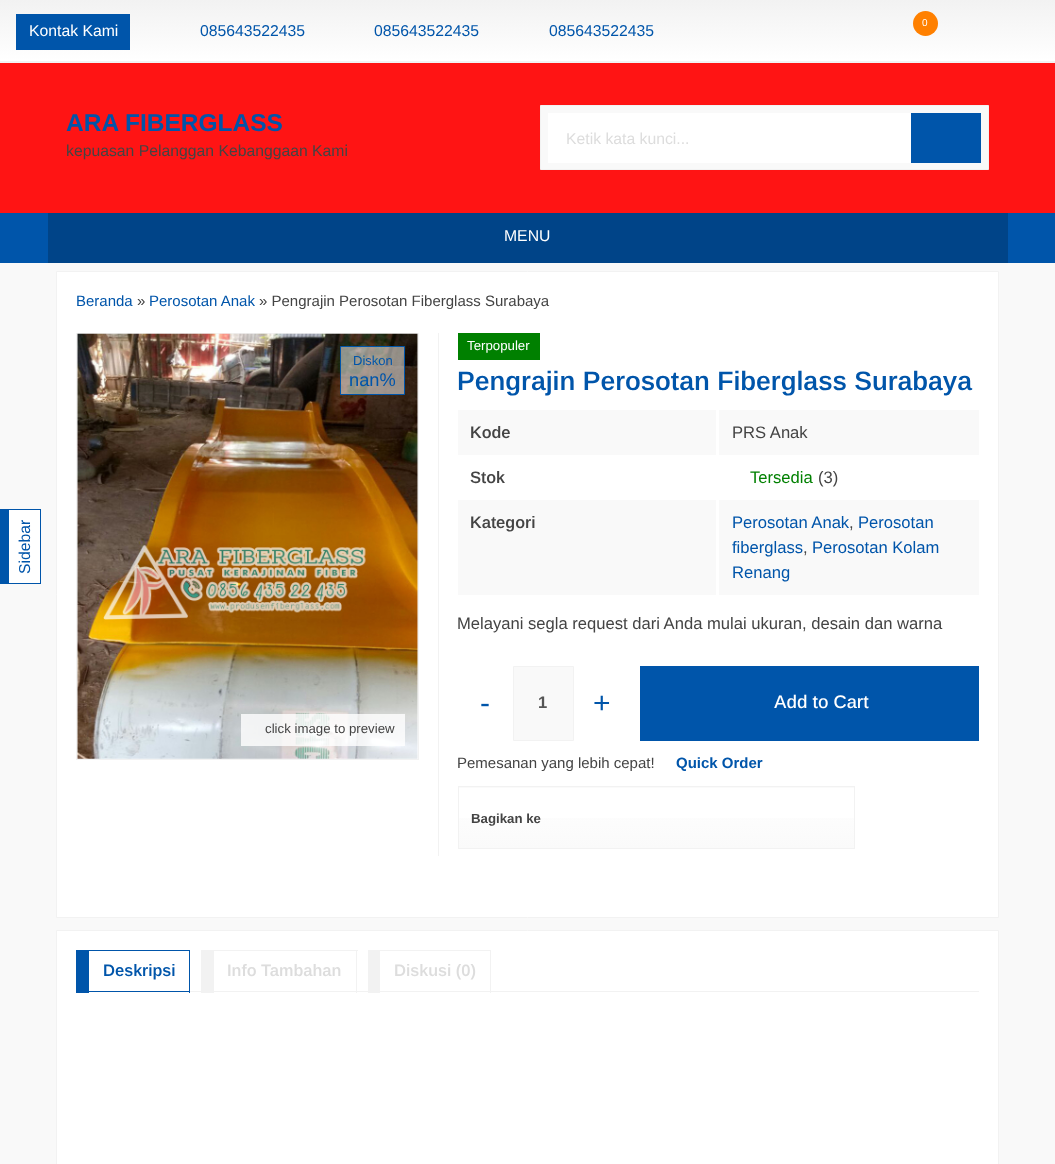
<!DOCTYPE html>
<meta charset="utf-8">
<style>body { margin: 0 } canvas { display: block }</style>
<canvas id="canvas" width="1055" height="1164"></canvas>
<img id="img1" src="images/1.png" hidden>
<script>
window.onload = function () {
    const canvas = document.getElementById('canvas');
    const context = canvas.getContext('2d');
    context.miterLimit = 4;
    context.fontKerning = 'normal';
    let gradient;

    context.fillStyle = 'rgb(0, 85, 170)';
    context.fillRect(0, 0, 1055, 1164);
    gradient = context.createLinearGradient(528, 0, 528, 61);
    gradient.addColorStop(0, 'rgb(242, 242, 242)');
    gradient.addColorStop(1, 'rgb(255, 255, 255)');
    context.fillStyle = gradient;
    context.fillRect(0, 0, 1055, 61);
    gradient = context.createLinearGradient(528, 61, 528, 123);
    gradient.addColorStop(0, 'rgb(242, 242, 242)');
    gradient.addColorStop(1, 'rgb(255, 255, 255)');
    context.fillStyle = gradient;
    context.fillRect(0, 61, 1055, 2);
    context.fillStyle = 'rgb(255, 128, 0)';
    context.beginPath();
    context.arc(925.5, 23.5, 12.5, 0, 2 * Math.PI);
    context.fill();
    context.fillStyle = 'rgb(0, 85, 170)';
    context.fillRect(16, 14, 114, 36);
    context.fillStyle = 'rgb(255, 20, 20)';
    context.fillRect(0, 63, 1055, 150);
    context.fillStyle = 'rgb(249, 249, 249)';
    context.beginPath();
    context.rect(540.5, 105.5, 448, 64);
    context.fill();
    context.strokeStyle = 'rgb(242, 242, 242)';
    context.stroke();
    context.fillStyle = 'rgb(255, 255, 255)';
    context.fillRect(548, 113, 363, 50);
    context.fillStyle = 'rgb(0, 85, 170)';
    context.fillRect(911, 113, 70, 50);
    context.fillStyle = 'rgb(0, 68, 136)';
    context.fillRect(48, 213, 960, 50);
    context.fillStyle = 'rgb(249, 249, 249)';
    context.fillRect(0, 263, 1055, 901);
    context.fillStyle = 'rgb(255, 255, 255)';
    context.fillRect(9, 510, 31, 73);
    context.fillStyle = 'rgb(0, 85, 170)';
    context.fillRect(0, 510, 9, 73);
    context.fillRect(0, 509, 41, 1);
    context.fillRect(40, 509, 1, 75);
    context.fillRect(0, 583, 41, 1);
    context.fillStyle = 'rgb(255, 255, 255)';
    context.beginPath();
    context.rect(56.5, 271.5, 942, 646);
    context.fill();
    context.stroke();
    context.strokeRect(76.5, 333.5, 342, 426);
    context.drawImage(document.getElementById('img1'), 77, 333, 341, 426);
    context.fillStyle = 'rgba(255, 255, 255, 0.5)';
    context.beginPath();
    context.rect(340.5, 346.5, 64, 48);
    context.fill();
    context.strokeStyle = 'rgb(0, 85, 170)';
    context.stroke();
    context.fillStyle = 'rgba(255, 255, 255, 0.8)';
    context.fillRect(241, 714, 164, 32);
    context.fillStyle = 'rgb(242, 242, 242)';
    context.fillRect(438, 333, 1, 523);
    context.fillStyle = 'rgb(0, 128, 0)';
    context.fillRect(458, 333, 82, 27);
    context.fillStyle = 'rgb(249, 249, 249)';
    context.fillRect(458, 410, 521, 45);
    context.fillStyle = 'rgb(255, 255, 255)';
    context.fillRect(716, 409, 3, 47);
    context.fillStyle = 'rgb(249, 249, 249)';
    context.fillRect(458, 500, 521, 95);
    context.fillStyle = 'rgb(255, 255, 255)';
    context.fillRect(716, 499, 3, 97);
    context.fillStyle = 'rgb(249, 249, 249)';
    context.beginPath();
    context.rect(513.5, 666.5, 60, 74);
    context.fill();
    context.strokeStyle = 'rgb(242, 242, 242)';
    context.stroke();
    context.fillStyle = 'rgb(0, 85, 170)';
    context.fillRect(640, 666, 339, 75);
    gradient = context.createLinearGradient(656, 788, 656, 728);
    gradient.addColorStop(0, 'rgb(250, 250, 250)');
    gradient.addColorStop(1, 'rgb(255, 255, 255)');
    context.fillStyle = gradient;
    context.fillRect(458, 787, 397, 1);
    gradient = context.createLinearGradient(656, 848, 656, 788);
    gradient.addColorStop(0, 'rgb(250, 250, 250)');
    gradient.addColorStop(1, 'rgb(255, 255, 255)');
    context.fillStyle = gradient;
    context.fillRect(459, 818, 395, 30);
    context.strokeRect(458.5, 786.5, 396, 62);
    context.fillStyle = 'rgb(255, 255, 255)';
    context.beginPath();
    context.rect(56.5, 930.5, 942, 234);
    context.fill();
    context.stroke();
    context.fillStyle = 'rgb(242, 242, 242)';
    context.fillRect(190, 991, 789, 1);
    context.fillStyle = 'rgb(0, 85, 170)';
    context.fillRect(89, 950, 101, 1);
    context.fillRect(189, 950, 1, 43);
    context.fillRect(89, 991, 101, 1);
    context.fillRect(76, 950, 13, 43);
    context.fillStyle = 'rgb(242, 242, 242)';
    context.fillRect(214, 950, 144, 1);
    context.fillRect(356, 950, 1, 43);
    context.fillRect(201, 950, 13, 43);
    context.fillRect(380, 950, 111, 1);
    context.fillRect(490, 950, 1, 43);
    context.fillRect(368, 950, 12, 43);
    context.font = '10px Arimo';
    context.fillStyle = 'rgb(255, 255, 255)';
    context.fillText('0', 922, 26);
    context.font = '15.75px Arimo';
    context.fillText('Kontak Kami', 29, 36);
    context.fillStyle = 'rgb(0, 85, 170)';
    context.fillText('085643522435', 200, 36);
    context.fillText('085643522435', 374, 36);
    context.fillText('085643522435', 549, 36);
    context.font = 'bold 24.5px Arimo';
    context.fillText('ARA FIBERGLASS', 66, 131);
    context.font = '15.75px Arimo';
    context.fillStyle = 'rgb(68, 68, 68)';
    context.fillText('kepuasan Pelanggan Kebanggaan Kami', 66, 156);
    context.fillStyle = 'rgb(221, 221, 221)';
    context.fillText('Ketik kata kunci...', 566, 144);
    context.fillStyle = 'rgb(255, 255, 255)';
    context.fillText('MENU', 504, 241);
    context.fillStyle = 'rgb(0, 85, 170)';
    context.save();
    context.translate(30, 574);
    context.rotate(-90 * Math.PI / 180);
    context.fillText('Sidebar', 0, 0);
    context.restore();
    context.font = '15px Arimo';
    context.fillText('Beranda', 76, 306);
    context.fillStyle = 'rgb(68, 68, 68)';
    context.fillText('»', 137, 306);
    context.fillStyle = 'rgb(0, 85, 170)';
    context.fillText('Perosotan Anak', 149, 306);
    context.fillStyle = 'rgb(68, 68, 68)';
    context.fillText('» Pengrajin Perosotan Fiberglass Surabaya', 259, 306);
    context.font = '13px Arimo';
    context.fillStyle = 'rgb(0, 85, 170)';
    context.fillText('Diskon', 353, 365);
    context.font = '18.25px Arimo';
    context.fillText('nan%', 349, 386);
    context.font = '13.25px Arimo';
    context.fillStyle = 'rgb(68, 68, 68)';
    context.fillText('click image to preview', 265, 733);
    context.fillStyle = 'rgb(255, 255, 255)';
    context.fillText('Terpopuler', 467, 350);
    context.font = '600 26.6px Arimo';
    context.fillStyle = 'rgb(0, 85, 170)';
    context.fillText('Pengrajin Perosotan Fiberglass Surabaya', 457, 390);
    context.font = '600 16.6px Arimo';
    context.fillStyle = 'rgb(68, 68, 68)';
    context.fillText('Kode', 470, 438);
    context.font = '16.6px Arimo';
    context.fillText('PRS Anak', 732, 438);
    context.font = '600 16.6px Arimo';
    context.fillText('Stok', 470, 483);
    context.font = '16.6px Arimo';
    context.fillStyle = 'rgb(0, 128, 0)';
    context.fillText('Tersedia', 750, 483);
    context.fillStyle = 'rgb(68, 68, 68)';
    context.fillText('(3)', 818, 483);
    context.font = '600 16.6px Arimo';
    context.fillText('Kategori', 470, 528);
    context.font = '16.6px Arimo';
    context.fillStyle = 'rgb(0, 85, 170)';
    context.fillText('Perosotan Anak', 732, 528);
    context.fillStyle = 'rgb(68, 68, 68)';
    context.fillText(',', 849, 528);
    context.fillStyle = 'rgb(0, 85, 170)';
    context.fillText('Perosotan', 858, 528);
    context.fillText('fiberglass', 732, 553);
    context.fillStyle = 'rgb(68, 68, 68)';
    context.fillText(',', 803, 553);
    context.fillStyle = 'rgb(0, 85, 170)';
    context.fillText('Perosotan Kolam', 812, 553);
    context.fillText('Renang', 732, 578);
    context.fillStyle = 'rgb(68, 68, 68)';
    context.fillText('Melayani segla request dari Anda mulai ukuran, desain dan warna', 457, 629);
    context.font = '30px Liberation Sans';
    context.fillStyle = 'rgb(0, 85, 170)';
    context.fillText('-', 480, 713);
    context.font = 'bold 16.6px Arimo';
    context.fillStyle = 'rgb(85, 85, 85)';
    context.fillText('1', 538, 708);
    context.font = '30px Liberation Sans';
    context.fillStyle = 'rgb(0, 85, 170)';
    context.fillText('+', 593, 713);
    context.font = '500 18.25px Arimo';
    context.fillStyle = 'rgb(255, 255, 255)';
    context.fillText('Add to Cart', 774, 708);
    context.font = '15px Arimo';
    context.fillStyle = 'rgb(68, 68, 68)';
    context.fillText('Pemesanan yang lebih cepat!', 457, 768);
    context.font = 'bold 15px Arimo';
    context.fillStyle = 'rgb(0, 85, 170)';
    context.fillText('Quick Order', 676, 768);
    context.font = 'bold 13.25px Arimo';
    context.fillStyle = 'rgb(68, 68, 68)';
    context.fillText('Bagikan ke', 471, 823);
    context.font = '600 16.6px Arimo';
    context.fillStyle = 'rgb(0, 85, 170)';
    context.fillText('Deskripsi', 103, 976);
    context.fillStyle = 'rgb(221, 221, 221)';
    context.fillText('Info Tambahan', 227, 976);
    context.fillText('Diskusi (0)', 394, 976);
};
</script>
